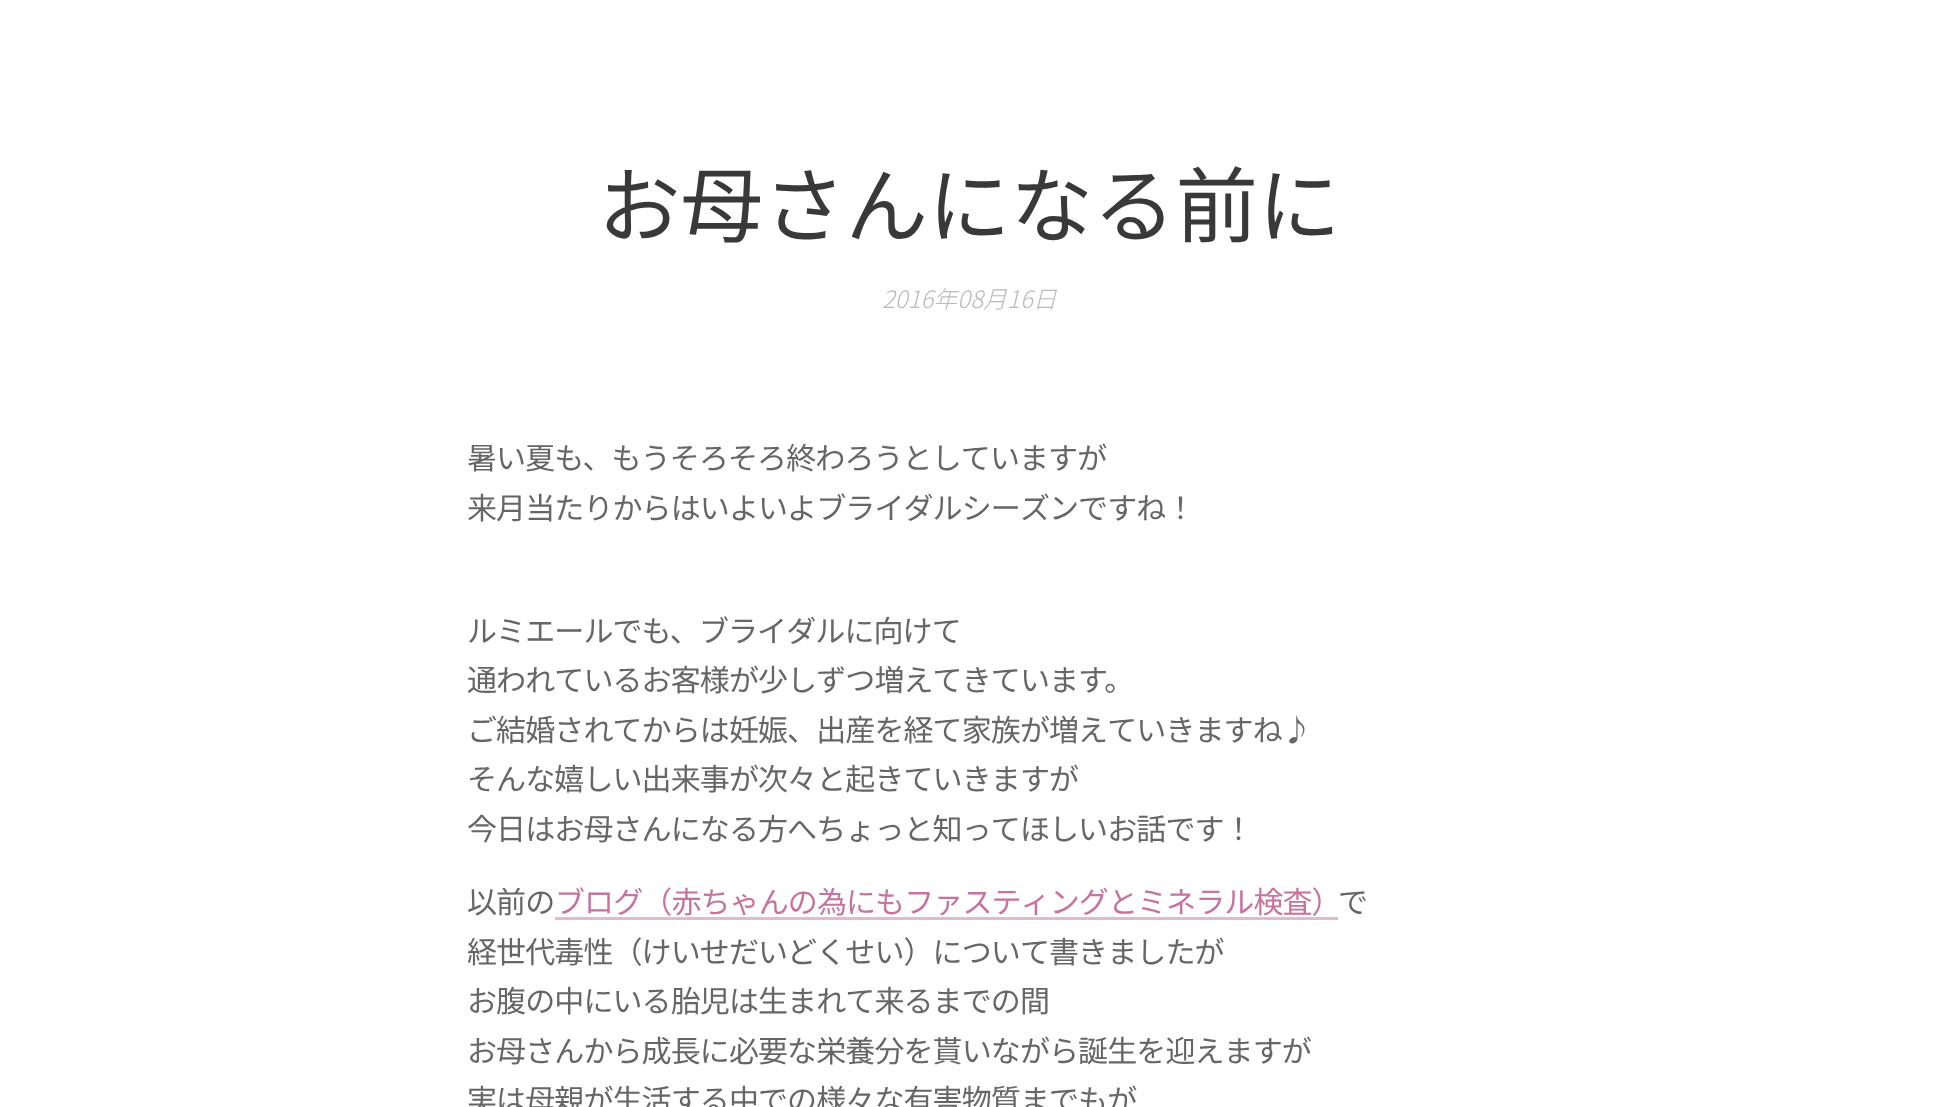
<!DOCTYPE html>
<meta charset="utf-8">
<style>body { margin: 0 } canvas { display: block }</style>
<canvas id="canvas" width="1939" height="1107"></canvas>
<script>
window.onload = function () {
    const canvas = document.getElementById('canvas');
    const context = canvas.getContext('2d');
    context.miterLimit = 4;
    context.fontKerning = 'normal';

    context.fillStyle = 'rgb(255, 255, 255)';
    context.fillRect(0, 0, 1939, 1107);
    context.fillStyle = 'rgb(227, 185, 207)';
    context.fillRect(555, 917, 783, 3);
    context.font = '82.5px Noto Sans JP';
    context.fillStyle = 'rgb(57, 57, 57)';
    context.fillText('お母さんになる前に', 598, 236);
    context.font = 'italic 300 24px Noto Sans JP';
    context.fillStyle = 'rgb(186, 186, 186)';
    context.fillText('2016年08月16日', 882, 308);
    context.letterSpacing = '-0.9px';
    context.font = '30px Noto Sans JP';
    context.fillStyle = 'rgb(102, 102, 102)';
    context.fillText('暑い夏も、もうそろそろ終わろうとしていますが', 467, 469);
    context.fillText('来月当たりからはいよいよブライダルシーズンですね！', 467, 519);
    context.fillText('ルミエールでも、ブライダルに向けて', 467, 642);
    context.fillText('通われているお客様が少しずつ増えてきています。', 467, 691);
    context.fillText('ご結婚されてからは妊娠、出産を経て家族が増えていきますね♪', 467, 741);
    context.fillText('そんな嬉しい出来事が次々と起きていきますが', 467, 790);
    context.fillText('今日はお母さんになる方へちょっと知ってほしいお話です！', 467, 840);
    context.fillText('以前の', 467, 913);
    context.fillStyle = 'rgb(198, 115, 158)';
    context.fillText('ブログ（赤ちゃんの為にもファスティングとミネラル検査）', 555, 913);
    context.fillStyle = 'rgb(102, 102, 102)';
    context.fillText('で', 1338, 913);
    context.fillText('経世代毒性（けいせだいどくせい）について書きましたが', 467, 963);
    context.fillText('お腹の中にいる胎児は生まれて来るまでの間', 467, 1012);
    context.fillText('お母さんから成長に必要な栄養分を貰いながら誕生を迎えますが', 467, 1062);
    context.fillText('実は母親が生活する中での様々な有害物質までもが', 467, 1111);
};
</script>
